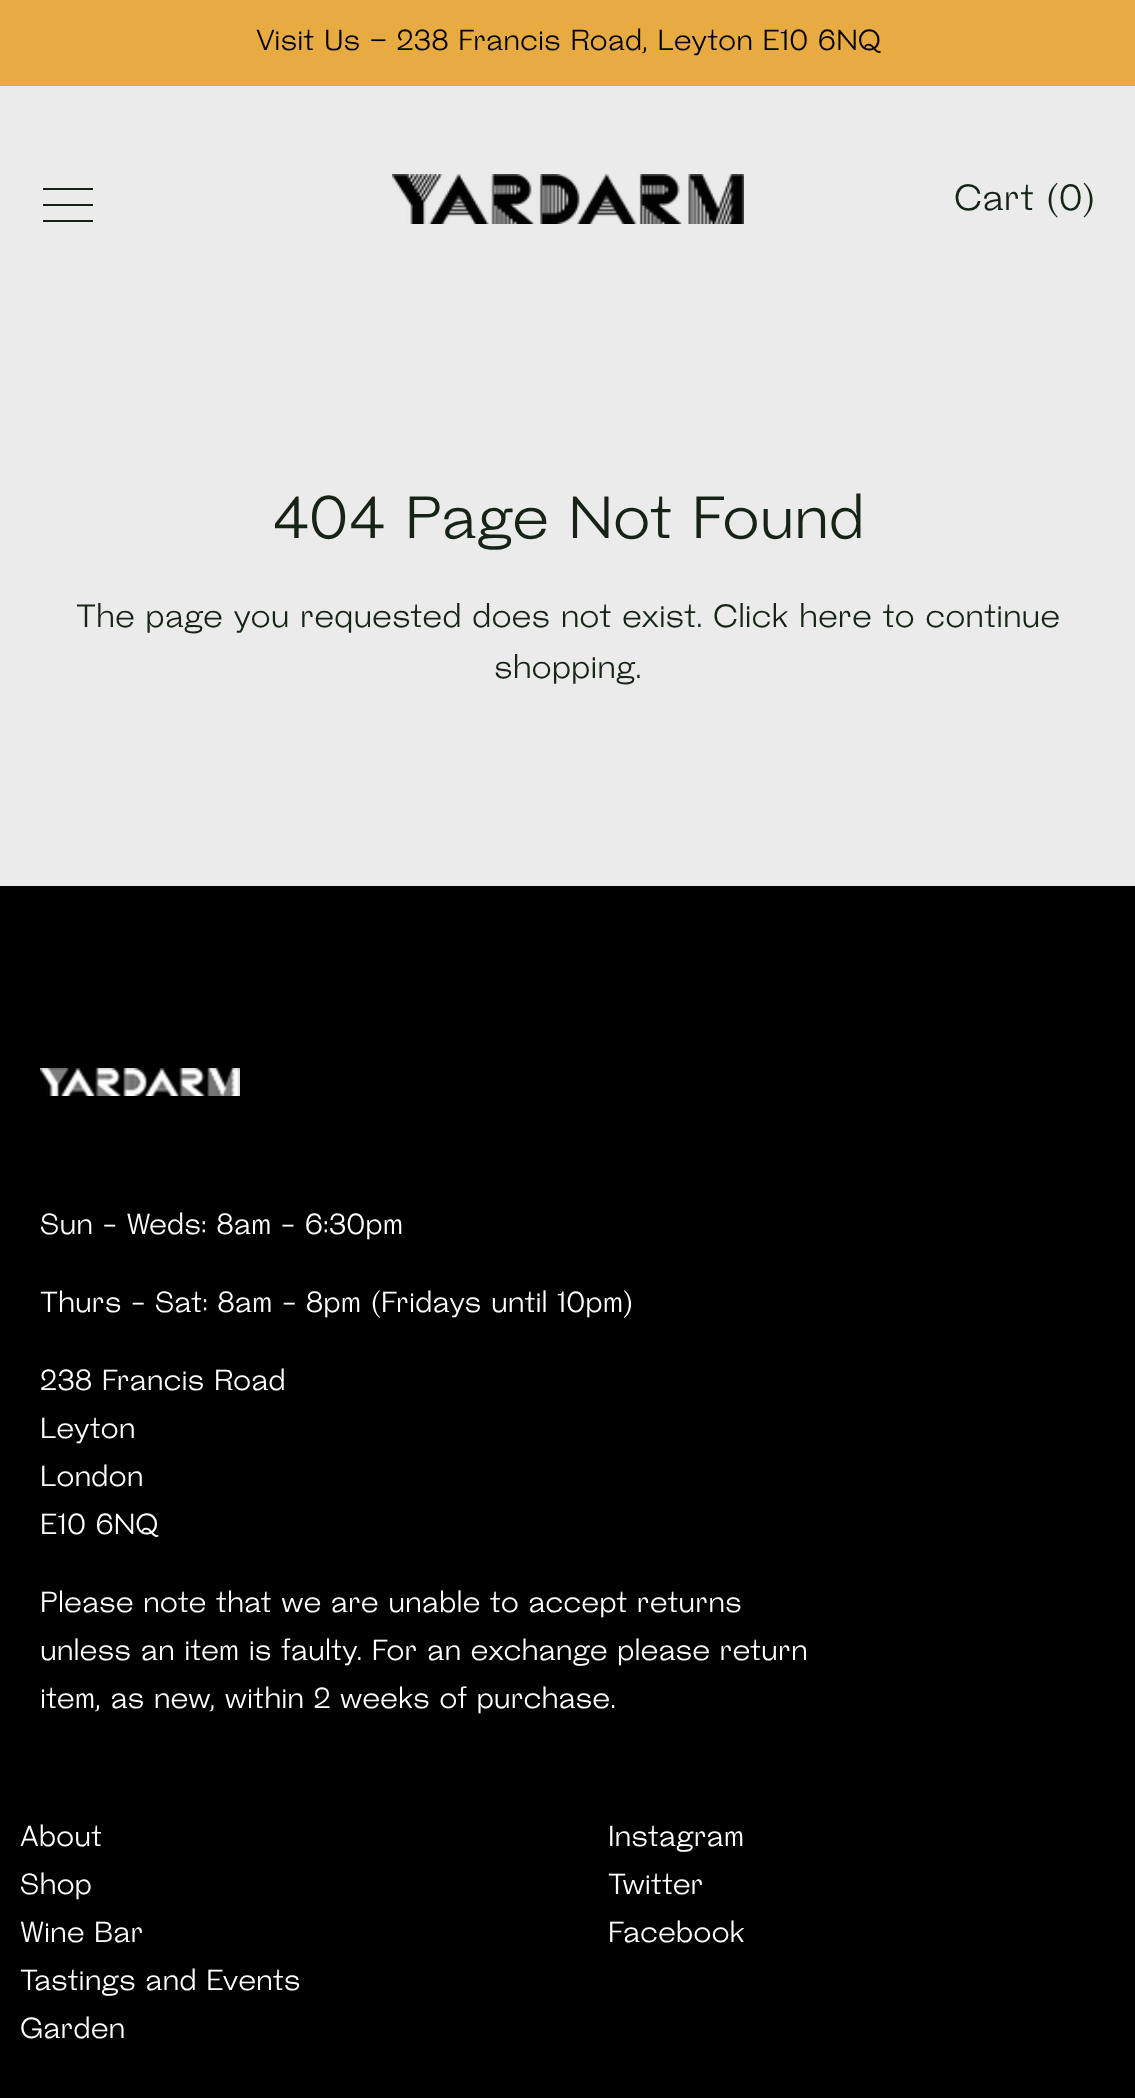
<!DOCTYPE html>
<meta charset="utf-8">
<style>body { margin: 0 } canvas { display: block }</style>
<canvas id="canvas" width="1135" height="2098"></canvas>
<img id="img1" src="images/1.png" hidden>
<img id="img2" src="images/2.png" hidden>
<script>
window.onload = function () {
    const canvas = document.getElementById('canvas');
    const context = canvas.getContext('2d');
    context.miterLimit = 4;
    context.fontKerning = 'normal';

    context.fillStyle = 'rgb(236, 235, 235)';
    context.fillRect(0, 0, 1135, 2098);
    context.fillStyle = 'rgb(232, 171, 65)';
    context.fillRect(0, 0, 1135, 86);
    context.fillStyle = 'rgb(22, 35, 23)';
    context.beginPath();
    context.moveTo(43, 220);
    context.lineTo(93, 220);
    context.lineTo(93, 222);
    context.lineTo(43, 222);
    context.closePath();
    context.moveTo(43, 204);
    context.lineTo(93, 204);
    context.lineTo(93, 206);
    context.lineTo(43, 206);
    context.closePath();
    context.moveTo(43, 188);
    context.lineTo(93, 188);
    context.lineTo(93, 190);
    context.lineTo(43, 190);
    context.closePath();
    context.fill('evenodd');
    context.drawImage(document.getElementById('img1'), 392, 174, 352, 50);
    context.fillStyle = 'rgb(0, 0, 0)';
    context.fillRect(0, 886, 1135, 1212);
    context.drawImage(document.getElementById('img2'), 40, 1068, 200, 28);
    context.font = '28.8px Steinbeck';
    context.fillText('Visit Us – 238 Francis Road, Leyton E10 6NQ', 256, 50);
    context.font = '36px Steinbeck';
    context.fillStyle = 'rgb(22, 35, 23)';
    context.fillText('Cart (0)', 954, 210);
    context.font = '59.25px Steinbeck';
    context.fillText('404 Page Not Found', 272, 538);
    context.font = '32px Steinbeck';
    context.fillText('The page you requested does not exist. Click here to continue', 76, 627);
    context.fillText('shopping.', 494, 678);
    context.font = '28.8px Steinbeck';
    context.fillStyle = 'rgb(255, 255, 255)';
    context.fillText('Sun - Weds: 8am - 6:30pm', 40, 1234);
    context.fillText('Thurs - Sat: 8am - 8pm (Fridays until 10pm)', 40, 1312);
    context.fillText('238 Francis Road', 40, 1390);
    context.fillText('Leyton', 40, 1438);
    context.fillText('London', 40, 1486);
    context.fillText('E10 6NQ', 40, 1534);
    context.fillText('Please note that we are unable to accept returns', 40, 1612);
    context.fillText('unless an item is faulty. For an exchange please return', 40, 1660);
    context.fillText('item, as new, within 2 weeks of purchase.', 40, 1708);
    context.fillText('About', 20, 1846);
    context.fillText('Shop', 20, 1894);
    context.fillText('Wine Bar', 20, 1942);
    context.fillText('Tastings and Events', 20, 1990);
    context.fillText('Garden', 20, 2038);
    context.fillText('Instagram', 608, 1846);
    context.fillText('Twitter', 608, 1894);
    context.fillText('Facebook', 608, 1942);
};
</script>
